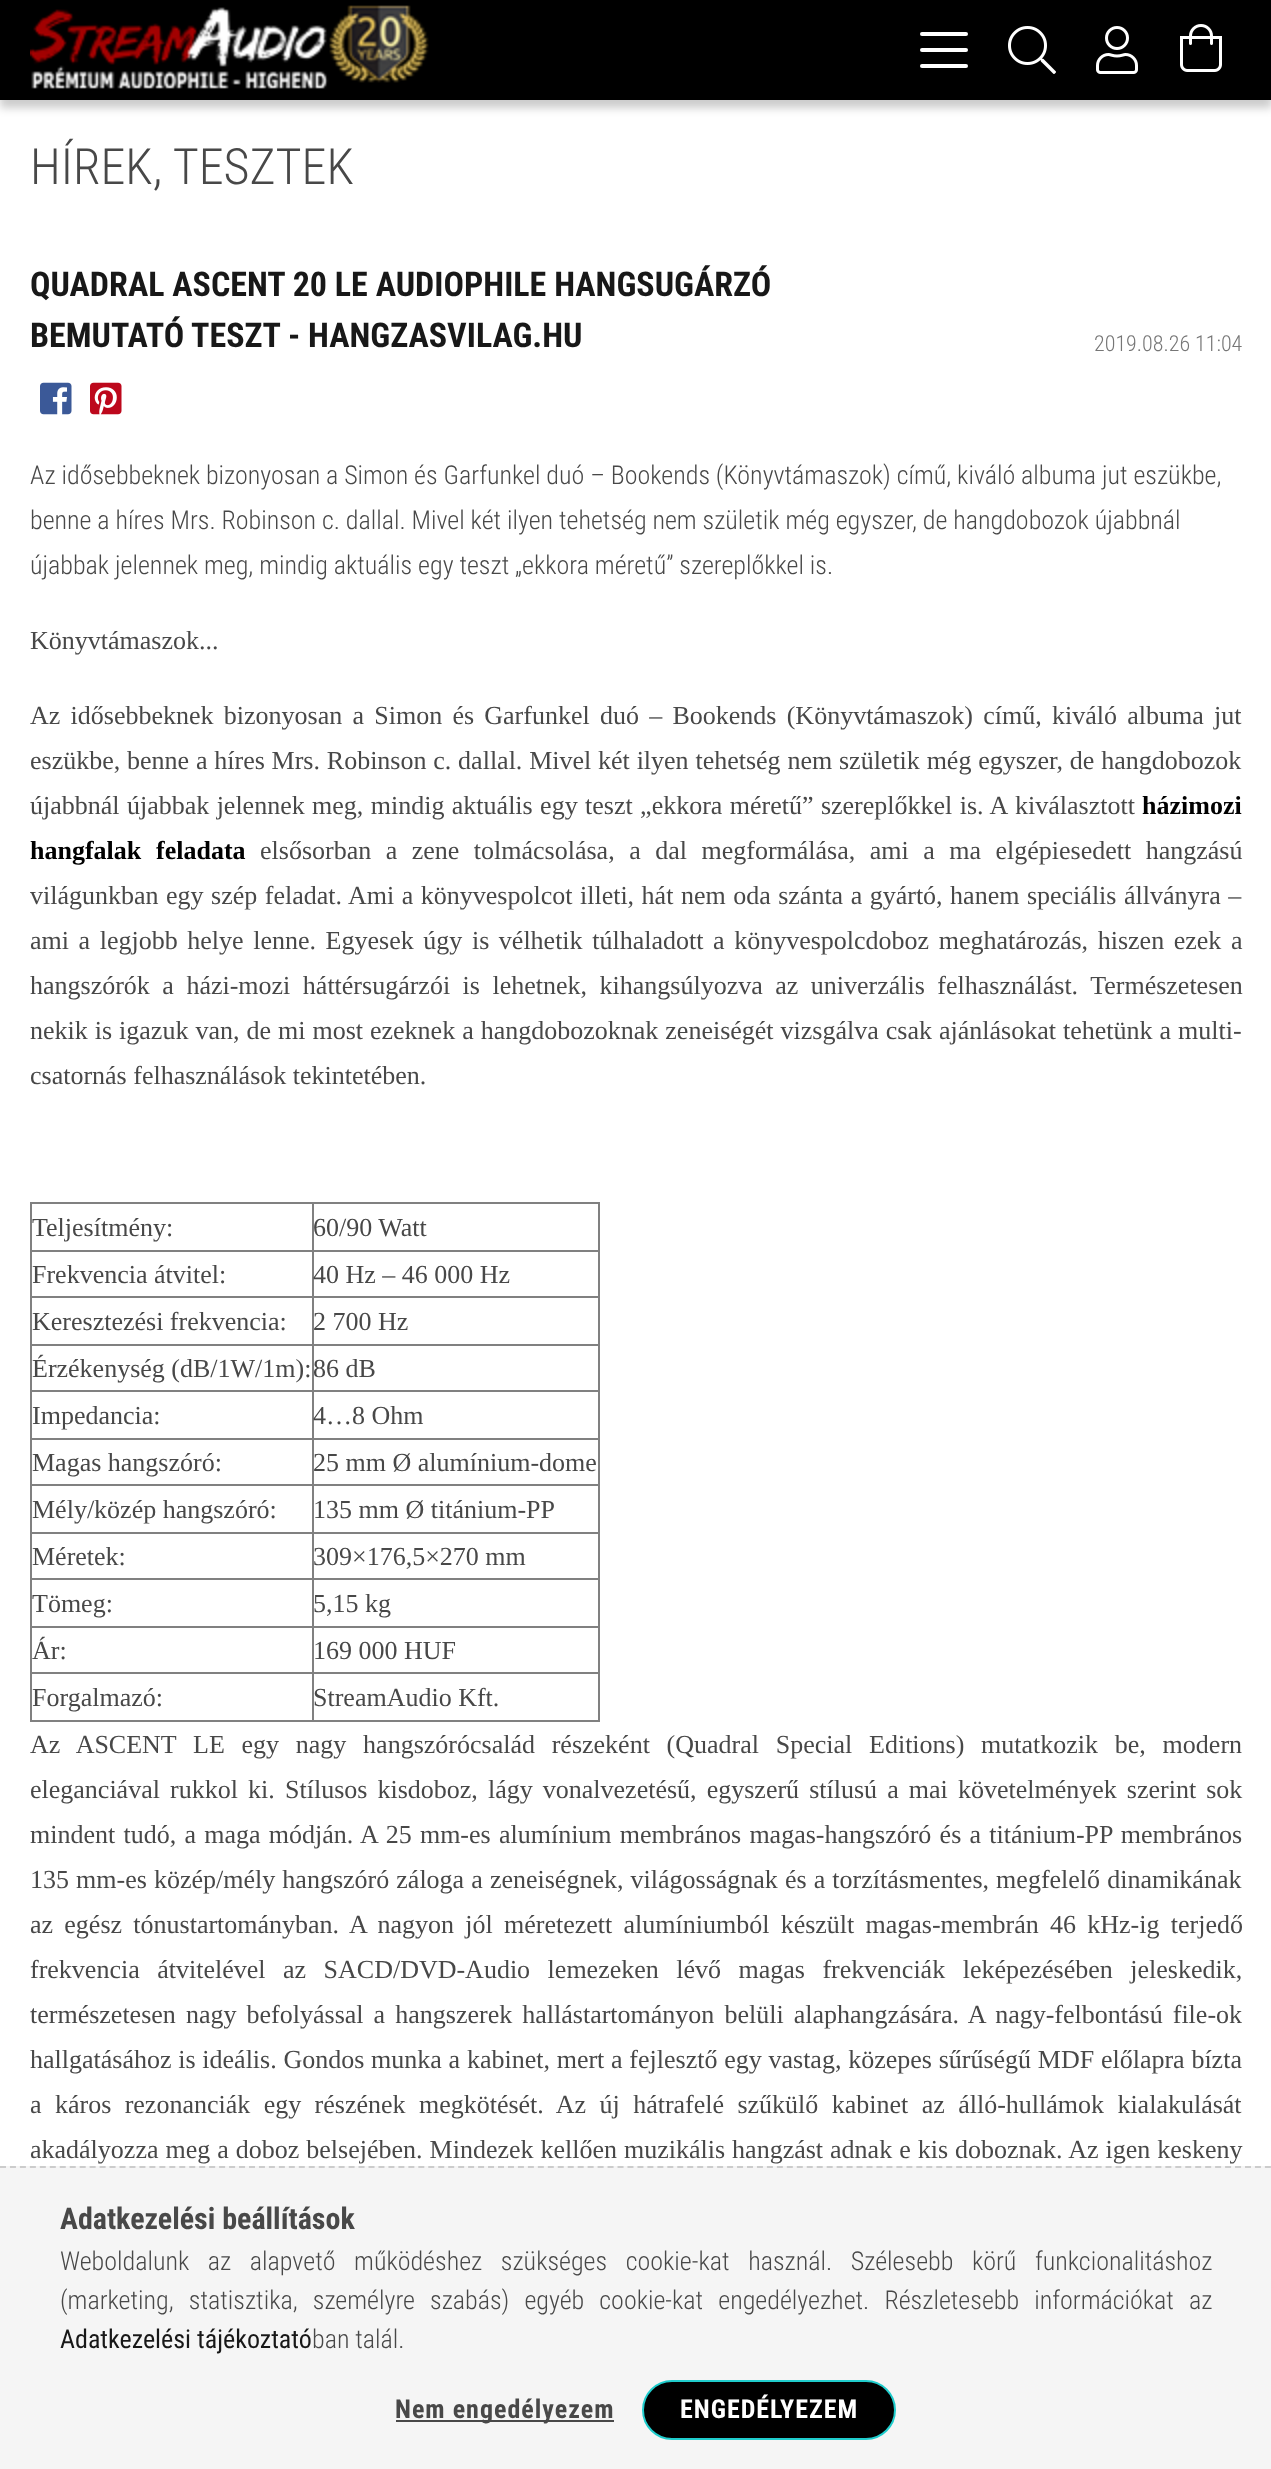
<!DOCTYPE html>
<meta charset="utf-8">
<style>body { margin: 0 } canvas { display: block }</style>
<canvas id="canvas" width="1271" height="2469"></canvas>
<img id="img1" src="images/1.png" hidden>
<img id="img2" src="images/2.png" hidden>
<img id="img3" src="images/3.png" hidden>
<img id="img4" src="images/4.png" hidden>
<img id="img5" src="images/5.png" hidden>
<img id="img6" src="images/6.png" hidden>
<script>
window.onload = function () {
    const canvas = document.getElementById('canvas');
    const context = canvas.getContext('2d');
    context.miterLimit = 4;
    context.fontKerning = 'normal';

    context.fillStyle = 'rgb(255, 255, 255)';
    context.fillRect(0, 0, 1271, 2469);
    context.fillStyle = 'rgba(0, 0, 0, 0.2)';
    context.filter = 'blur(4px)';
    context.beginPath();
    context.rect(0, 8, 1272, 100);
    context.fill();
    context.filter = 'none';
    context.fillStyle = 'rgb(0, 0, 0)';
    context.fillRect(0, 0, 1271, 100);
    context.drawImage(document.getElementById('img1'), 30, 5, 399, 84);
    context.fillStyle = 'rgb(255, 255, 255)';
    context.beginPath();
    context.roundRect(920, 32, 48, 4, 2);
    context.fill();
    context.beginPath();
    context.roundRect(920, 48, 48, 4, 2);
    context.fill();
    context.beginPath();
    context.roundRect(920, 64, 48, 4, 2);
    context.fill();
    context.drawImage(document.getElementById('img2'), 1008, 26, 48, 48);
    context.drawImage(document.getElementById('img3'), 1096, 26, 42, 48);
    context.drawImage(document.getElementById('img4'), 1180, 24, 42, 48);
    context.drawImage(document.getElementById('img5'), 40, 382, 32, 33);
    context.drawImage(document.getElementById('img6'), 90, 382, 32, 33);
    context.fillStyle = 'rgb(128, 128, 128)';
    context.fillRect(30, 1202, 570, 2);
    context.fillRect(598, 1202, 2, 520);
    context.fillRect(30, 1720, 570, 2);
    context.fillRect(30, 1202, 2, 520);
    context.fillRect(312, 1250, 288, 2);
    context.fillRect(312, 1296, 288, 2);
    context.fillRect(312, 1344, 288, 2);
    context.fillRect(312, 1390, 288, 2);
    context.fillRect(312, 1438, 288, 2);
    context.fillRect(312, 1484, 288, 2);
    context.fillRect(312, 1532, 288, 2);
    context.fillRect(312, 1578, 288, 2);
    context.fillRect(312, 1626, 288, 2);
    context.fillRect(312, 1672, 288, 2);
    context.fillRect(312, 1672, 2, 50);
    context.fillRect(30, 1672, 284, 2);
    context.fillRect(312, 1626, 2, 48);
    context.fillRect(30, 1626, 284, 2);
    context.fillRect(312, 1578, 2, 50);
    context.fillRect(30, 1578, 284, 2);
    context.fillRect(312, 1532, 2, 48);
    context.fillRect(30, 1532, 284, 2);
    context.fillRect(312, 1484, 2, 50);
    context.fillRect(30, 1484, 284, 2);
    context.fillRect(312, 1438, 2, 48);
    context.fillRect(30, 1438, 284, 2);
    context.fillRect(312, 1390, 2, 50);
    context.fillRect(30, 1390, 284, 2);
    context.fillRect(312, 1344, 2, 48);
    context.fillRect(30, 1344, 284, 2);
    context.fillRect(312, 1296, 2, 50);
    context.fillRect(30, 1296, 284, 2);
    context.fillRect(312, 1250, 2, 48);
    context.fillRect(30, 1250, 284, 2);
    context.fillRect(312, 1202, 2, 50);
    context.fillStyle = 'rgb(245, 245, 245)';
    context.fillRect(0, 2166, 1271, 303);
    context.beginPath();
    context.moveTo(0, 2167);
    context.lineTo(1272, 2167);
    context.strokeStyle = 'rgb(204, 204, 204)';
    context.lineWidth = 2;
    context.setLineDash([6, 3.96]);
    context.stroke();
    context.fillStyle = 'rgb(72, 72, 72)';
    context.fillRect(396, 2420, 218, 2);
    context.fillStyle = 'rgb(0, 0, 0)';
    context.beginPath();
    context.roundRect(643, 2381, 252, 58, 29);
    context.fill();
    context.strokeStyle = 'rgb(31, 204, 204)';
    context.setLineDash([]);
    context.stroke();
    context.font = '300 50px Roboto Condensed';
    context.fillStyle = 'rgb(72, 72, 72)';
    context.fillText('HÍREK, TESZTEK', 30, 184);
    context.font = 'bold 34px Roboto Condensed';
    context.fillStyle = 'rgb(24, 24, 24)';
    context.fillText('QUADRAL ASCENT 20 LE AUDIOPHILE HANGSUGÁRZÓ', 30, 296);
    context.fillText('BEMUTATÓ TESZT - HANGZASVILAG.HU', 30, 347);
    context.font = '300 22px Roboto Condensed';
    context.fillStyle = 'rgb(118, 118, 118)';
    context.fillText('2019.08.26 11:04', 1094, 351);
    context.font = '300 26px Roboto Condensed';
    context.fillStyle = 'rgb(72, 72, 72)';
    context.fillText('Az idősebbeknek bizonyosan a Simon és Garfunkel duó – Bookends (Könyvtámaszok) című, kiváló albuma jut eszükbe,', 30, 484);
    context.fillText('benne a híres Mrs. Robinson c. dallal. Mivel két ilyen tehetség nem születik még egyszer, de hangdobozok újabbnál', 30, 529);
    context.fillText('újabbak jelennek meg, mindig aktuális egy teszt „ekkora méretű” szereplőkkel is.', 30, 574);
    context.font = '26px Liberation Serif';
    context.fillText('Könyvtámaszok...', 30, 649);
    context.wordSpacing = '3.75px';
    context.fillText('Az idősebbeknek bizonyosan a Simon és Garfunkel duó – Bookends (Könyvtámaszok) című, kiváló albuma jut', 30, 724);
    context.wordSpacing = '0.3px';
    context.fillText('eszükbe, benne a híres Mrs. Robinson c. dallal. Mivel két ilyen tehetség nem születik még egyszer, de hangdobozok', 30, 769);
    context.wordSpacing = '0.9px';
    context.fillText('újabbnál újabbak jelennek meg, mindig aktuális egy teszt „ekkora méretű” szereplőkkel is. A', 30, 814);
    context.wordSpacing = '0px';
    context.fillText('kiválasztott', 1015, 814);
    context.font = 'bold 26px Liberation Serif';
    context.fillStyle = 'rgb(0, 0, 0)';
    context.fillText('házimozi', 1142, 814);
    context.fillText('hangfalak', 30, 859);
    context.fillText('feladata', 156, 859);
    context.wordSpacing = '8px';
    context.font = '26px Liberation Serif';
    context.fillStyle = 'rgb(72, 72, 72)';
    context.fillText('elsősorban a zene tolmácsolása, a dal megformálása, ami a ma elgépiesedett hangzású', 260, 859);
    context.wordSpacing = '1px';
    context.fillText('világunkban egy szép feladat. Ami a könyvespolcot illeti, hát nem oda szánta a gyártó, hanem speciális állványra –', 30, 904);
    context.wordSpacing = '3.1px';
    context.fillText('ami a legjobb helye lenne. Egyesek úgy is vélhetik túlhaladott a könyvespolcdoboz meghatározás, hiszen ezek a', 30, 949);
    context.wordSpacing = '6px';
    context.fillText('hangszórók a házi-mozi háttérsugárzói is lehetnek, kihangsúlyozva az univerzális felhasználást. Természetesen', 30, 994);
    context.wordSpacing = '0.5px';
    context.fillText('nekik is igazuk van, de mi most ezeknek a hangdobozoknak zeneiségét vizsgálva csak ajánlásokat tehetünk a multi-', 30, 1039);
    context.wordSpacing = '0px';
    context.fillText('csatornás felhasználások tekintetében.', 30, 1084);
    context.fillText('Teljesítmény:', 32, 1236);
    context.fillText('60/90 Watt', 313, 1236);
    context.fillText('Frekvencia átvitel:', 32, 1283);
    context.fillText('40 Hz – 46 000 Hz', 313, 1283);
    context.fillText('Keresztezési frekvencia:', 32, 1330);
    context.fillText('2 700 Hz', 313, 1330);
    context.fillText('Érzékenység (dB/1W/1m):', 32, 1377);
    context.fillText('86 dB', 313, 1377);
    context.fillText('Impedancia:', 32, 1424);
    context.fillText('4…8 Ohm', 313, 1424);
    context.fillText('Magas hangszóró:', 32, 1471);
    context.fillText('25 mm Ø alumínium-dome', 313, 1471);
    context.fillText('Mély/közép hangszóró:', 32, 1518);
    context.fillText('135 mm Ø titánium-PP', 313, 1518);
    context.fillText('Méretek:', 32, 1565);
    context.fillText('309×176,5×270 mm', 313, 1565);
    context.fillText('Tömeg:', 32, 1612);
    context.fillText('5,15 kg', 313, 1612);
    context.fillText('Ár:', 32, 1659);
    context.fillText('169 000 HUF', 313, 1659);
    context.fillText('Forgalmazó:', 32, 1706);
    context.fillText('StreamAudio Kft.', 313, 1706);
    context.wordSpacing = '10.25px';
    context.fillText('Az ASCENT LE egy nagy hangszórócsalád részeként (Quadral Special Editions) mutatkozik be, modern', 30, 1753);
    context.wordSpacing = '3.6px';
    context.fillText('eleganciával rukkol ki.', 30, 1798);
    context.fillText('Stílusos kisdoboz, lágy vonalvezetésű, egyszerű stílusú a mai követelmények szerint sok', 285, 1798);
    context.wordSpacing = '1.75px';
    context.fillText('mindent tudó, a maga módján. A 25 mm-es alumínium membrános magas-hangszóró és a titánium-PP membrános', 30, 1843);
    context.wordSpacing = '0.6px';
    context.fillText('135 mm-es közép/mély hangszóró záloga a zeneiségnek, világosságnak és a torzításmentes, megfelelő dinamikának', 30, 1888);
    context.wordSpacing = '4.75px';
    context.fillText('az egész tónustartományban. A nagyon jól méretezett alumíniumból készült magas-membrán 46 kHz-ig terjedő', 30, 1933);
    context.wordSpacing = '11px';
    context.fillText('frekvencia átvitelével az SACD/DVD-Audio lemezeken lévő magas frekvenciák leképezésében jeleskedik,', 30, 1978);
    context.wordSpacing = '3.6px';
    context.fillText('természetesen nagy befolyással a hangszerek hallástartományon belüli alaphangzására. A nagy-felbontású file-ok', 30, 2023);
    context.wordSpacing = '0.25px';
    context.fillText('hallgatásához is ideális. Gondos munka a kabinet, mert a fejlesztő egy vastag, közepes sűrűségű MDF előlapra bízta', 30, 2068);
    context.wordSpacing = '6.9px';
    context.fillText('a káros rezonanciák egy részének megkötését. Az új hátrafelé szűkülő kabinet az álló-hullámok kialakulását', 30, 2113);
    context.wordSpacing = '0.5px';
    context.fillText('akadályozza meg a doboz belsejében. Mindezek kellően muzikális hangzást adnak e kis doboznak. Az igen keskeny', 30, 2158);
    context.wordSpacing = '0px';
    context.font = 'bold 30px Roboto Condensed';
    context.fillText('Adatkezelési beállítások', 60, 2229);
    context.wordSpacing = '12.75px';
    context.font = '300 26px Roboto Condensed';
    context.fillText('Weboldalunk az alapvető működéshez szükséges cookie-kat használ. Szélesebb körű funkcionalitáshoz', 60, 2270);
    context.wordSpacing = '9.25px';
    context.fillText('(marketing, statisztika, személyre szabás) egyéb cookie-kat engedélyezhet. Részletesebb információkat az', 60, 2309);
    context.wordSpacing = '0px';
    context.font = '26px Roboto Condensed';
    context.fillStyle = 'rgb(24, 24, 24)';
    context.fillText('Adatkezelési tájékoztató', 60, 2348);
    context.font = '300 26px Roboto Condensed';
    context.fillStyle = 'rgb(72, 72, 72)';
    context.fillText('ban talál.', 312, 2348);
    context.letterSpacing = '1px';
    context.font = 'bold 26px Roboto Condensed';
    context.fillText('Nem engedélyezem', 395, 2418);
    context.fillStyle = 'rgb(255, 255, 255)';
    context.fillText('ENGEDÉLYEZEM', 680, 2418);
};
</script>
